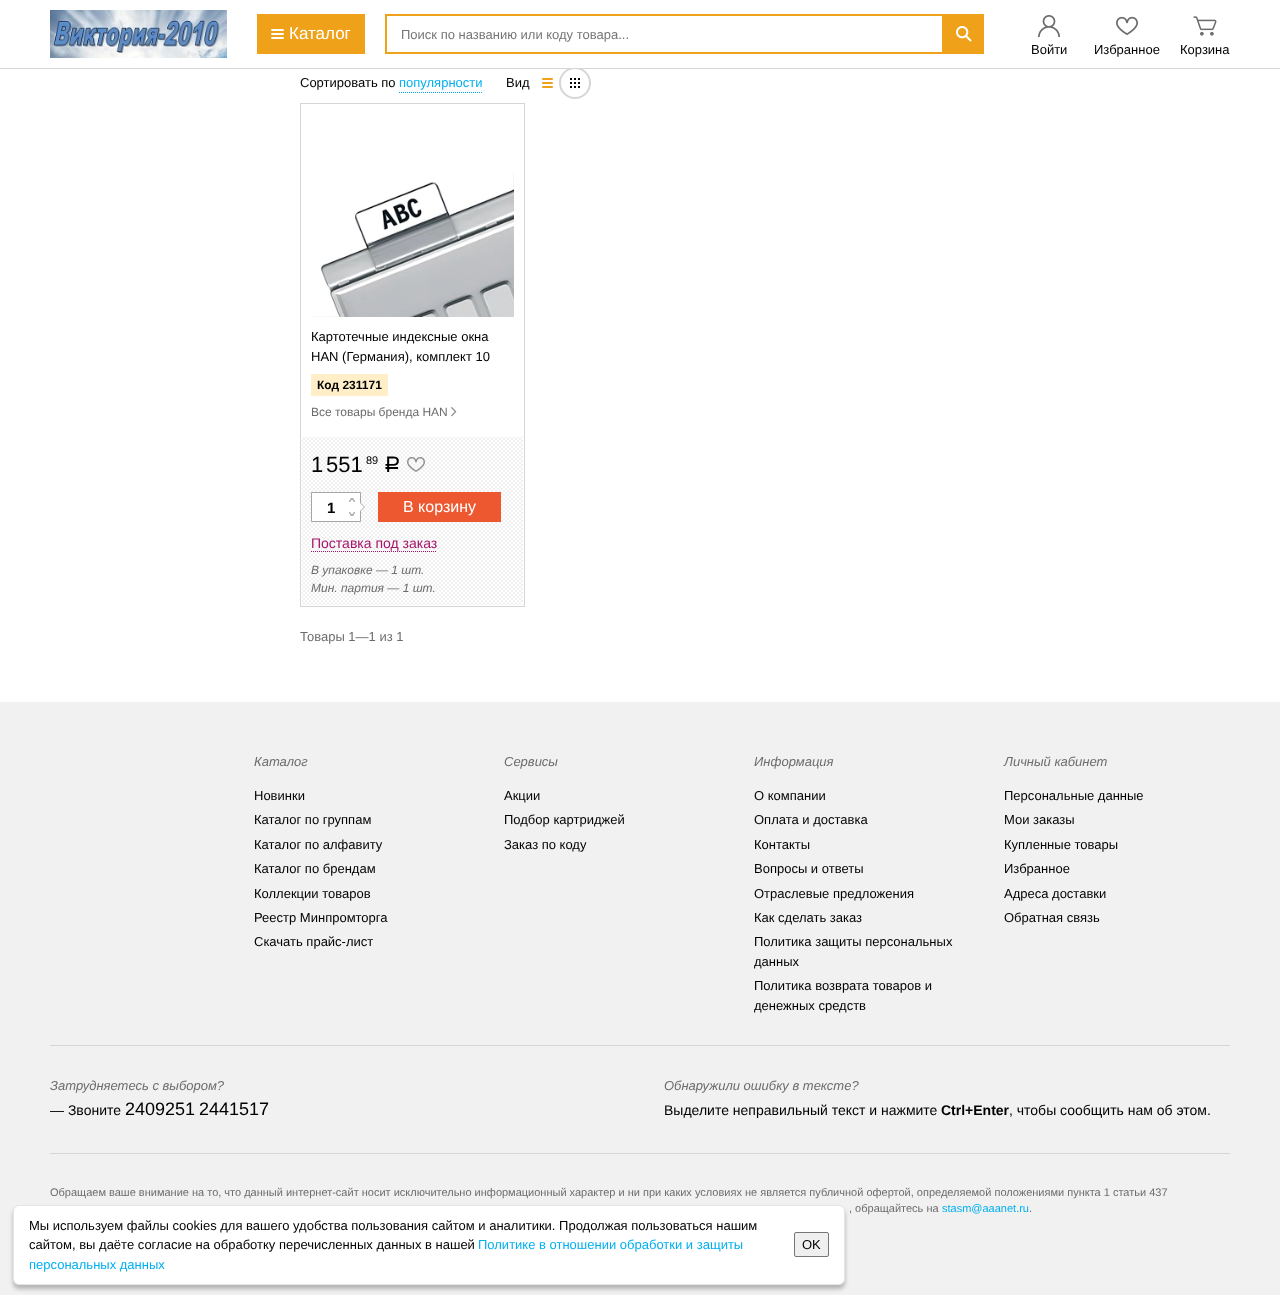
<!DOCTYPE html>
<meta charset="utf-8">
<style>body { margin: 0 } canvas { display: block }</style>
<canvas id="canvas" width="1280" height="1295"></canvas>
<img id="img1" src="images/1.png" hidden>
<img id="img2" src="images/2.png" hidden>
<img id="img3" src="images/3.png" hidden>
<img id="img4" src="images/4.png" hidden>
<img id="img5" src="images/5.png" hidden>
<img id="img6" src="images/6.png" hidden>
<img id="img7" src="images/7.png" hidden>
<img id="img8" src="images/8.png" hidden>
<img id="img9" src="images/9.png" hidden>
<img id="img10" src="images/10.png" hidden>
<img id="img11" src="images/11.png" hidden>
<img id="img12" src="images/12.png" hidden>
<img id="img13" src="images/13.png" hidden>
<script>
window.onload = function () {
    const canvas = document.getElementById('canvas');
    const context = canvas.getContext('2d');
    context.miterLimit = 4;
    context.fontKerning = 'normal';

    context.fillStyle = 'rgb(255, 255, 255)';
    context.fillRect(0, 0, 1280, 1295);
    context.beginPath();
    context.arc(575, 83, 15, 0, 2 * Math.PI);
    context.strokeStyle = 'rgb(214, 214, 214)';
    context.lineWidth = 2;
    context.stroke();
    context.fillRect(570, 67, 10, 1);
    context.fillStyle = 'rgb(214, 214, 214)';
    context.fillRect(0, 68, 1280, 1);
    context.drawImage(document.getElementById('img1'), 50, 10, 177, 48);
    context.fillStyle = 'rgb(239, 161, 25)';
    context.fillRect(257, 14, 108, 40);
    context.fillStyle = 'rgb(255, 255, 255)';
    context.beginPath();
    context.roundRect(271, 33, 13, 2, 1);
    context.fill();
    context.beginPath();
    context.roundRect(271, 29, 13, 2, 1);
    context.fill();
    context.beginPath();
    context.roundRect(271, 37, 13, 2, 1);
    context.fill();
    context.strokeStyle = 'rgb(239, 161, 25)';
    context.strokeRect(386, 15, 597, 38);
    context.fillStyle = 'rgb(239, 161, 25)';
    context.fillRect(942, 16, 40, 36);
    context.drawImage(document.getElementById('img2'), 956, 26, 16, 16);
    context.drawImage(document.getElementById('img3'), 1038, 15, 22, 22);
    context.drawImage(document.getElementById('img4'), 1116, 16, 22, 19);
    context.drawImage(document.getElementById('img5'), 1193, 16, 24, 20);
    context.beginPath();
    context.moveTo(399, 92.5);
    context.lineTo(483, 92.5);
    context.strokeStyle = 'rgb(0, 175, 240)';
    context.lineWidth = 1;
    context.setLineDash([1, 1]);
    context.stroke();
    context.drawImage(document.getElementById('img6'), 542, 78, 11, 10);
    context.drawImage(document.getElementById('img7'), 570, 78, 10, 10);
    context.strokeStyle = 'rgb(214, 214, 214)';
    context.setLineDash([]);
    context.strokeRect(300.5, 103.5, 224, 503);
    context.drawImage(document.getElementById('img8'), 313, 171, 201, 146);
    context.fillStyle = 'rgb(255, 238, 199)';
    context.fillRect(311, 374, 77, 22);
    context.drawImage(document.getElementById('img9'), 451, 407, 6, 10);
    context.drawImage(document.getElementById('img10'), 302, 437, 221, 168);
    context.drawImage(document.getElementById('img11'), 407, 457, 18, 15);
    context.fillStyle = 'rgb(255, 255, 255)';
    context.beginPath();
    context.rect(311.5, 492.5, 49, 29);
    context.fill();
    context.strokeStyle = 'rgb(166, 166, 166)';
    context.stroke();
    context.drawImage(document.getElementById('img12'), 349, 498, 6, 4);
    context.drawImage(document.getElementById('img13'), 349, 512, 6, 4);
    context.fillStyle = 'rgb(166, 166, 166)';
    context.beginPath();
    context.moveTo(360, 512);
    context.lineTo(360, 502);
    context.lineTo(365, 507);
    context.closePath();
    context.fill();
    context.fillStyle = 'rgb(255, 255, 255)';
    context.beginPath();
    context.moveTo(360, 511);
    context.lineTo(360, 503);
    context.lineTo(364, 507);
    context.closePath();
    context.fill();
    context.fillStyle = 'rgb(238, 88, 48)';
    context.fillRect(378, 492, 123, 30);
    context.beginPath();
    context.moveTo(311, 551.5);
    context.lineTo(437, 551.5);
    context.strokeStyle = 'rgb(167, 18, 106)';
    context.setLineDash([1, 1]);
    context.stroke();
    context.fillStyle = 'rgb(241, 241, 241)';
    context.fillRect(0, 702, 1280, 593);
    context.fillStyle = 'rgb(214, 214, 214)';
    context.fillRect(50, 1045, 1180, 1);
    context.fillRect(50, 1153, 1180, 1);
    context.fillStyle = 'rgba(0, 0, 0, 0.25)';
    context.filter = 'blur(2px)';
    context.beginPath();
    context.roundRect(13, 1209, 832, 80, 6);
    context.fill();
    context.filter = 'none';
    context.fillStyle = 'rgb(255, 255, 255)';
    context.beginPath();
    context.roundRect(13.5, 1205.5, 831, 79, 5.5);
    context.fill();
    context.strokeStyle = 'rgb(229, 229, 229)';
    context.setLineDash([]);
    context.stroke();
    context.fillStyle = 'rgb(239, 239, 239)';
    context.beginPath();
    context.roundRect(794.5, 1232.5, 34, 24, 1.5);
    context.fill();
    context.strokeStyle = 'rgb(118, 118, 118)';
    context.stroke();
    context.font = '17px Liberation Sans';
    context.fillStyle = 'rgb(255, 255, 255)';
    context.fillText('Каталог', 289, 39);
    context.font = '13px Liberation Sans';
    context.fillStyle = 'rgb(117, 117, 117)';
    context.fillText('Поиск по названию или коду товара...', 401, 39);
    context.fillStyle = 'rgb(0, 0, 0)';
    context.fillText('Войти', 1031, 54);
    context.fillText('Избранное', 1094, 54);
    context.fillText('Корзина', 1180, 54);
    context.fillText('Сортировать по', 300, 87);
    context.fillStyle = 'rgb(0, 175, 240)';
    context.fillText('популярности', 399, 87);
    context.fillStyle = 'rgb(0, 0, 0)';
    context.fillText('Вид', 506, 87);
    context.fillText('Картотечные индексные окна', 311, 341);
    context.fillText('HAN (Германия), комплект 10', 311, 361);
    context.font = 'bold 12px Liberation Sans';
    context.fillText('Код 231171', 317, 389);
    context.font = '12px Liberation Sans';
    context.fillStyle = 'rgb(108, 108, 108)';
    context.fillText('Все товары бренда HAN', 311, 416);
    context.font = '22px Liberation Sans';
    context.fillStyle = 'rgb(0, 0, 0)';
    context.fillText('1', 311, 472);
    context.fillText('551', 326, 472);
    context.font = '11px Liberation Sans';
    context.fillText('89', 366, 464);
    context.font = '22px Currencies';
    context.fillText('руб', 382, 472);
    context.font = 'bold 15px Liberation Sans';
    context.fillText('1', 327, 513);
    context.font = '16px Liberation Sans';
    context.fillStyle = 'rgb(255, 255, 255)';
    context.fillText('В корзину', 403, 512);
    context.beginPath();
    context.moveTo(434, 502);
    context.bezierCurveTo(436.5, 499.5, 440.5, 499.5, 443, 502);
    context.strokeStyle = 'rgb(238, 88, 48)';
    context.lineWidth = 4;
    context.stroke();
    context.font = '14px Liberation Sans';
    context.fillStyle = 'rgb(167, 18, 106)';
    context.fillText('Поставка под заказ', 311, 548);
    context.font = 'italic 12px Liberation Sans';
    context.fillStyle = 'rgb(108, 108, 108)';
    context.fillText('В упаковке — 1 шт.', 311, 574);
    context.fillText('Мин. партия — 1 шт.', 311, 592);
    context.font = '13px Liberation Sans';
    context.fillText('Товары 1—1 из 1', 300, 641);
    context.font = 'italic 13px Liberation Sans';
    context.fillText('Каталог', 254, 766);
    context.font = '13px Liberation Sans';
    context.fillStyle = 'rgb(0, 0, 0)';
    context.fillText('Новинки', 254, 800);
    context.fillText('Каталог по группам', 254, 824);
    context.fillText('Каталог по алфавиту', 254, 849);
    context.fillText('Каталог по брендам', 254, 873);
    context.fillText('Коллекции товаров', 254, 898);
    context.fillText('Реестр Минпромторга', 254, 922);
    context.fillText('Скачать прайс-лист', 254, 946);
    context.font = 'italic 13px Liberation Sans';
    context.fillStyle = 'rgb(108, 108, 108)';
    context.fillText('Сервисы', 504, 766);
    context.font = '13px Liberation Sans';
    context.fillStyle = 'rgb(0, 0, 0)';
    context.fillText('Акции', 504, 800);
    context.fillText('Подбор картриджей', 504, 824);
    context.fillText('Заказ по коду', 504, 849);
    context.font = 'italic 13px Liberation Sans';
    context.fillStyle = 'rgb(108, 108, 108)';
    context.fillText('Информация', 754, 766);
    context.font = '13px Liberation Sans';
    context.fillStyle = 'rgb(0, 0, 0)';
    context.fillText('О компании', 754, 800);
    context.fillText('Оплата и доставка', 754, 824);
    context.fillText('Контакты', 754, 849);
    context.fillText('Вопросы и ответы', 754, 873);
    context.fillText('Отраслевые предложения', 754, 898);
    context.fillText('Как сделать заказ', 754, 922);
    context.fillText('Политика защиты персональных', 754, 946);
    context.fillText('данных', 754, 966);
    context.fillText('Политика возврата товаров и', 754, 990);
    context.fillText('денежных средств', 754, 1010);
    context.font = 'italic 13px Liberation Sans';
    context.fillStyle = 'rgb(108, 108, 108)';
    context.fillText('Личный кабинет', 1004, 766);
    context.font = '13px Liberation Sans';
    context.fillStyle = 'rgb(0, 0, 0)';
    context.fillText('Персональные данные', 1004, 800);
    context.fillText('Мои заказы', 1004, 824);
    context.fillText('Купленные товары', 1004, 849);
    context.fillText('Избранное', 1004, 873);
    context.fillText('Адреса доставки', 1004, 898);
    context.fillText('Обратная связь', 1004, 922);
    context.font = 'italic 13px Liberation Sans';
    context.fillStyle = 'rgb(108, 108, 108)';
    context.fillText('Затрудняетесь с выбором?', 50, 1090);
    context.font = '14px Liberation Sans';
    context.fillStyle = 'rgb(0, 0, 0)';
    context.fillText('— Звоните', 50, 1115);
    context.font = '18px Liberation Sans';
    context.fillText('2409251', 125, 1115);
    context.fillText('2441517', 199, 1115);
    context.font = 'italic 13px Liberation Sans';
    context.fillStyle = 'rgb(108, 108, 108)';
    context.fillText('Обнаружили ошибку в тексте?', 664, 1090);
    context.font = '14px Liberation Sans';
    context.fillStyle = 'rgb(0, 0, 0)';
    context.fillText('Выделите неправильный текст и нажмите', 664, 1115);
    context.font = 'bold 14px Liberation Sans';
    context.fillText('Ctrl+Enter', 941, 1115);
    context.font = '14px Liberation Sans';
    context.fillText(', чтобы сообщить нам об этом.', 1009, 1115);
    context.font = '11px Liberation Sans';
    context.fillStyle = 'rgb(108, 108, 108)';
    context.fillText('Обращаем ваше внимание на то, что данный интернет-сайт носит исключительно информационный характер и ни при каких условиях не является публичной офертой, определяемой положениями пункта 1 статьи 437', 50, 1196);
    context.fillText(', обращайтесь на', 849, 1212);
    context.fillStyle = 'rgb(0, 175, 240)';
    context.fillText('stasm@aaanet.ru', 942, 1212);
    context.fillStyle = 'rgb(108, 108, 108)';
    context.fillText('.', 1029, 1212);
    context.font = '13px Liberation Sans';
    context.fillStyle = 'rgb(0, 0, 0)';
    context.fillText('Мы используем файлы cookies для вашего удобства пользования сайтом и аналитики. Продолжая пользоваться нашим', 29, 1230);
    context.fillText('сайтом, вы даёте согласие на обработку перечисленных данных в нашей', 29, 1249);
    context.fillStyle = 'rgb(0, 175, 240)';
    context.fillText('Политике в отношении обработки и защиты', 478, 1249);
    context.fillText('персональных данных', 29, 1269);
    context.fillStyle = 'rgb(0, 0, 0)';
    context.fillText('OK', 802, 1249);
};
</script>
